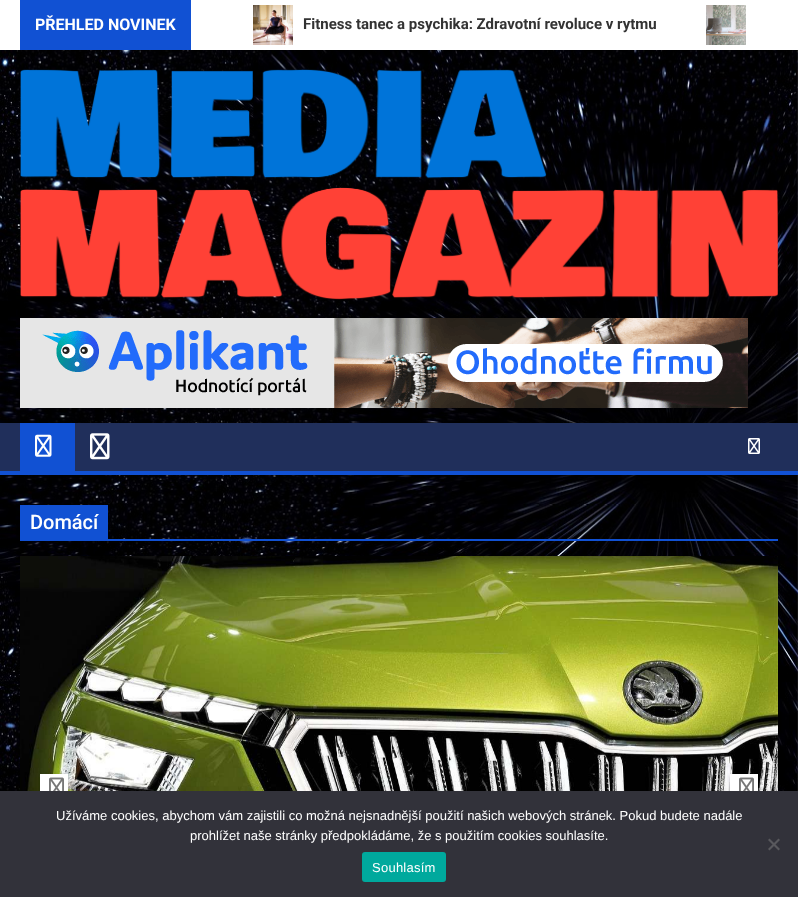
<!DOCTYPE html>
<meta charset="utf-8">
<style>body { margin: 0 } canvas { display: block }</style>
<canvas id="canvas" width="798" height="897"></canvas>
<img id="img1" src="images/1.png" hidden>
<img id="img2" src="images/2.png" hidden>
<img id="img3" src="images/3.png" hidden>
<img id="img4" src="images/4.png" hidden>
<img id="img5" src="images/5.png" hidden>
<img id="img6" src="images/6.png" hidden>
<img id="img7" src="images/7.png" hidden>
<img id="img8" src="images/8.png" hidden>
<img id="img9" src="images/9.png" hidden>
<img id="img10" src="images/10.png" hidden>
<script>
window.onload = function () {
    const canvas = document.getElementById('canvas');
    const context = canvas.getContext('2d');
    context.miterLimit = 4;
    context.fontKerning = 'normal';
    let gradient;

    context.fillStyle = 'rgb(255, 255, 255)';
    context.fillRect(0, 0, 798, 897);
    context.drawImage(document.getElementById('img1'), 0, 50, 798, 741);
    context.fillStyle = 'rgba(0, 0, 0, 0.07)';
    context.fillRect(122, 50, 515, 1);
    context.fillStyle = 'rgb(17, 81, 211)';
    context.fillRect(20, 0, 171, 50);
    context.drawImage(document.getElementById('img2'), 253, 5, 40, 40);
    context.drawImage(document.getElementById('img3'), 706, 5, 40, 40);
    gradient = context.createLinearGradient(695, 25, 775, 25);
    gradient.addColorStop(0, 'rgba(255, 255, 255, 0)');
    gradient.addColorStop(1, 'rgb(255, 255, 255)');
    context.fillStyle = gradient;
    context.fillRect(706, 5, 40, 40);
    context.drawImage(document.getElementById('img4'), 20, 69, 758, 231);
    context.drawImage(document.getElementById('img5'), 20, 318, 728, 90);
    context.fillStyle = 'rgb(32, 47, 91)';
    context.fillRect(0, 423, 798, 48);
    context.fillStyle = 'rgb(17, 81, 211)';
    context.fillRect(20, 423, 55, 48);
    context.drawImage(document.getElementById('img6'), 35, 434, 17, 23);
    context.drawImage(document.getElementById('img7'), 90, 433, 20, 27);
    context.drawImage(document.getElementById('img8'), 748, 438, 12, 16);
    context.fillRect(0, 471, 798, 4);
    context.fillRect(20, 539, 758, 2);
    context.fillRect(20, 505, 88, 34);
    context.drawImage(document.getElementById('img9'), 20, 556, 758, 235);
    context.fillStyle = 'rgba(0, 0, 0, 0.12)';
    context.filter = 'blur(2.5px)';
    context.beginPath();
    context.rect(40, 775, 28, 28);
    context.fill();
    context.filter = 'none';
    context.fillStyle = 'rgba(0, 0, 0, 0.14)';
    context.filter = 'blur(1px)';
    context.beginPath();
    context.rect(40, 776, 28, 28);
    context.fill();
    context.filter = 'none';
    context.fillStyle = 'rgb(255, 255, 255)';
    context.fillRect(40, 774, 28, 17);
    context.drawImage(document.getElementById('img10'), 49, 777, 15, 14);
    context.fillStyle = 'rgba(0, 0, 0, 0.12)';
    context.filter = 'blur(2.5px)';
    context.beginPath();
    context.rect(730, 775, 28, 28);
    context.fill();
    context.filter = 'none';
    context.fillStyle = 'rgba(0, 0, 0, 0.14)';
    context.filter = 'blur(1px)';
    context.beginPath();
    context.rect(730, 776, 28, 28);
    context.fill();
    context.filter = 'none';
    context.fillStyle = 'rgb(255, 255, 255)';
    context.fillRect(730, 774, 28, 17);
    context.drawImage(document.getElementById('img10'), 739, 777, 15, 14);
    context.fillStyle = 'rgb(50, 50, 58)';
    context.fillRect(0, 791, 798, 106);
    context.fillStyle = 'rgb(89, 89, 93)';
    context.beginPath();
    context.moveTo(778.5, 838.5);
    context.lineTo(780, 840);
    context.lineTo(769.5, 850.5);
    context.lineTo(768, 849);
    context.closePath();
    context.fill();
    context.beginPath();
    context.moveTo(768, 840);
    context.lineTo(769.5, 838.5);
    context.lineTo(780, 849);
    context.lineTo(778.5, 850.5);
    context.closePath();
    context.fill();
    context.fillStyle = 'rgb(0, 169, 157)';
    context.beginPath();
    context.roundRect(362, 852, 84, 30, 3);
    context.fill();
    context.font = 'bold 16px Roboto';
    context.fillStyle = 'rgb(255, 255, 255)';
    context.fillText('PŘEHLED NOVINEK', 35, 30);
    context.font = 'bold 15px Roboto';
    context.fillStyle = 'rgb(51, 51, 51)';
    context.fillText('Fitness tanec a psychika: Zdravotní revoluce v rytmu', 303, 29);
    context.font = '500 20px Roboto';
    context.fillStyle = 'rgb(255, 255, 255)';
    context.fillText('Domácí', 30, 529);
    context.font = '13px Liberation Sans';
    context.fillText('Užíváme cookies, abychom vám zajistili co možná nejsnadnější použití našich webových stránek. Pokud budete nadále', 56, 820);
    context.fillText('prohlížet naše stránky předpokládáme, že s použitím cookies souhlasíte.', 190, 840);
    context.letterSpacing = '0.25px';
    context.fillText('Souhlasím', 372, 872);
};
</script>
